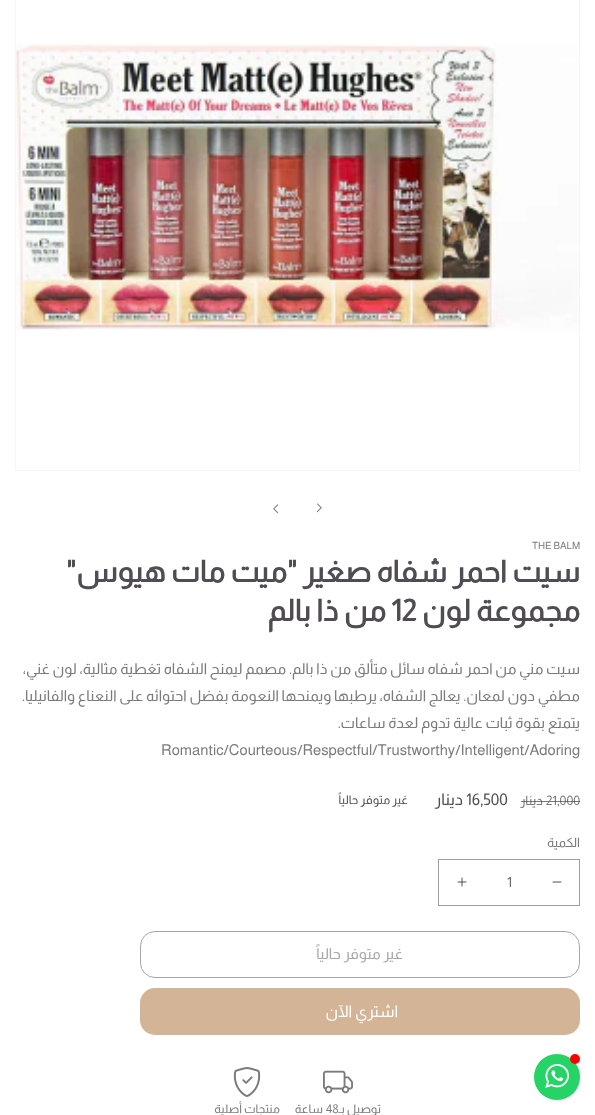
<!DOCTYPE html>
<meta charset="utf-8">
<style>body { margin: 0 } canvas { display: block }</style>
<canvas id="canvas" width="595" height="1115"></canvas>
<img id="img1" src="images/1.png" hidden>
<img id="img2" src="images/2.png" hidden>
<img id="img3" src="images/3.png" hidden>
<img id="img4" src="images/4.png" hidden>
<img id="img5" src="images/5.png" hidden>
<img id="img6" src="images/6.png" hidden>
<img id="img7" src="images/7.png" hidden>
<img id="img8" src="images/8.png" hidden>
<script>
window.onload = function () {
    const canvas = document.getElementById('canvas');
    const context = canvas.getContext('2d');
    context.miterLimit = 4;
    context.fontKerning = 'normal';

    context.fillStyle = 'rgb(255, 255, 255)';
    context.fillRect(0, 0, 595, 1115);
    context.strokeStyle = 'rgb(246, 246, 246)';
    context.strokeRect(15.5, -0.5, 564, 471);
    context.drawImage(document.getElementById('img1'), 16, 43, 563, 289);
    context.drawImage(document.getElementById('img2'), 316, 503, 6, 10);
    context.drawImage(document.getElementById('img3'), 273, 504, 6, 10);
    context.drawImage(document.getElementById('img4'), 552, 881, 10, 2);
    context.drawImage(document.getElementById('img5'), 457, 877, 10, 10);
    context.strokeStyle = 'rgb(159, 157, 160)';
    context.strokeRect(438.5, 859.5, 141, 46);
    context.beginPath();
    context.roundRect(140.5, 931.5, 439, 46, 14.5);
    context.strokeStyle = 'rgb(168, 166, 169)';
    context.stroke();
    context.fillStyle = 'rgb(211, 180, 151)';
    context.beginPath();
    context.roundRect(140, 988, 440, 47, 15);
    context.fill();
    context.drawImage(document.getElementById('img6'), 323, 1070, 30, 24);
    context.drawImage(document.getElementById('img7'), 233, 1067, 28, 30);
    context.fillStyle = 'rgb(37, 211, 102)';
    context.beginPath();
    context.arc(557, 1077, 23.5, 0, 2 * Math.PI);
    context.fill();
    context.strokeStyle = 'rgb(255, 255, 255)';
    context.stroke();
    context.fillStyle = 'rgb(255, 0, 0)';
    context.beginPath();
    context.arc(575, 1059, 5, 0, 2 * Math.PI);
    context.fill();
    context.drawImage(document.getElementById('img8'), 545, 1064, 24, 24);
    context.font = '10px Almarai';
    context.fillStyle = 'rgb(124, 121, 126)';
    context.fillText('THE BALM', 532, 549);
    context.direction = 'rtl';
    context.font = 'bold 30px Almarai';
    context.fillStyle = 'rgb(80, 76, 83)';
    context.fillText('سيت احمر شفاه صغير "ميت مات هيوس"', 580, 582);
    context.fillText('مجموعة لون', 580, 621);
    context.direction = 'ltr';
    context.fillText('12', 391, 621);
    context.direction = 'rtl';
    context.fillText('من ذا بالم', 386, 621);
    context.font = '15px Almarai';
    context.fillStyle = 'rgb(124, 121, 126)';
    context.fillText('سيت مني من احمر شفاه سائل متألق من ذا بالم. مصمم ليمنح الشفاه تغطية مثالية، لون غني،', 580, 674);
    context.fillText('مطفي دون لمعان. يعالج الشفاه، يرطبها ويمنحها النعومة بفضل احتوائه على النعناع والفانيليا.', 580, 701);
    context.fillText('يتمتع بقوة ثبات عالية تدوم لعدة ساعات.', 580, 728);
    context.direction = 'ltr';
    context.fillText('Romantic/Courteous/Respectful/Trustworthy/Intelligent/Adoring', 161, 755);
    context.font = '13px Almarai';
    context.fillText('21,000', 546, 805);
    context.fillStyle = 'rgba(80, 76, 83, 0.75)';
    context.fillRect(546, 801, 34, 1);
    context.direction = 'rtl';
    context.fillStyle = 'rgb(124, 121, 126)';
    context.fillText('دينار', 543, 805);
    context.fillStyle = 'rgba(80, 76, 83, 0.75)';
    context.fillRect(521, 801, 25, 1);
    context.direction = 'ltr';
    context.font = '16px Almarai';
    context.fillStyle = 'rgb(80, 76, 83)';
    context.fillText('16,500', 466, 805);
    context.direction = 'rtl';
    context.fillText('دينار', 463, 805);
    context.font = '12px Almarai';
    context.fillText('غير متوفر حالياً', 408, 804);
    context.font = '13px Almarai';
    context.fillStyle = 'rgb(124, 121, 126)';
    context.fillText('الكمية', 580, 847);
    context.direction = 'ltr';
    context.font = '14px Almarai';
    context.fillStyle = 'rgb(106, 103, 109)';
    context.fillText('1', 507, 887);
    context.direction = 'rtl';
    context.font = '15px Almarai';
    context.fillStyle = 'rgb(168, 166, 169)';
    context.fillText('غير متوفر حالياً', 403, 959);
    context.font = '16px Almarai';
    context.fillStyle = 'rgb(255, 255, 255)';
    context.fillText('اشتري الآن', 398, 1017);
    context.font = '12px Almarai';
    context.fillStyle = 'rgb(124, 121, 126)';
    context.fillText('توصيل بـ', 381, 1113);
    context.direction = 'ltr';
    context.fillText('48', 326, 1113);
    context.direction = 'rtl';
    context.fillText('ساعة', 323, 1113);
    context.fillText('منتجات أصلية', 280, 1113);
};
</script>
